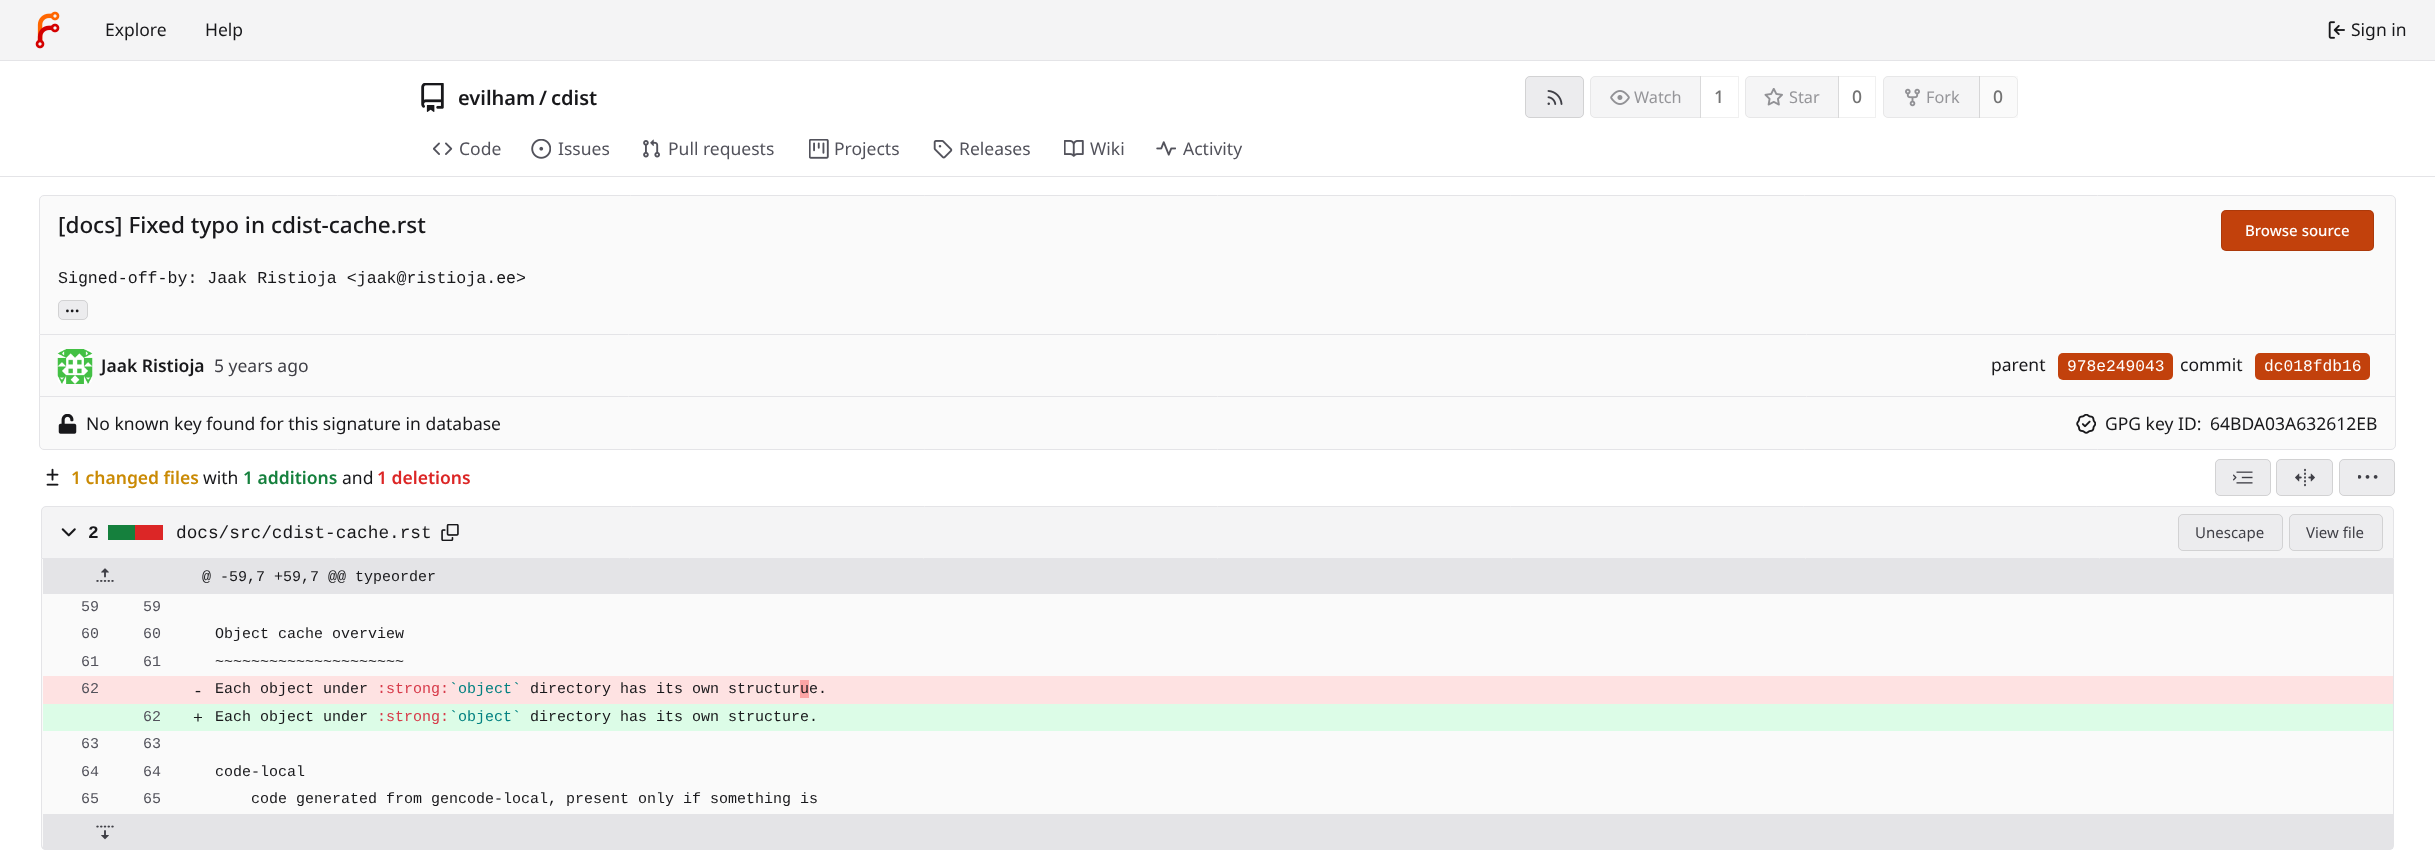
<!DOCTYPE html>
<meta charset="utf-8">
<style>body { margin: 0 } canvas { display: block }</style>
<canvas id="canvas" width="2435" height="864"></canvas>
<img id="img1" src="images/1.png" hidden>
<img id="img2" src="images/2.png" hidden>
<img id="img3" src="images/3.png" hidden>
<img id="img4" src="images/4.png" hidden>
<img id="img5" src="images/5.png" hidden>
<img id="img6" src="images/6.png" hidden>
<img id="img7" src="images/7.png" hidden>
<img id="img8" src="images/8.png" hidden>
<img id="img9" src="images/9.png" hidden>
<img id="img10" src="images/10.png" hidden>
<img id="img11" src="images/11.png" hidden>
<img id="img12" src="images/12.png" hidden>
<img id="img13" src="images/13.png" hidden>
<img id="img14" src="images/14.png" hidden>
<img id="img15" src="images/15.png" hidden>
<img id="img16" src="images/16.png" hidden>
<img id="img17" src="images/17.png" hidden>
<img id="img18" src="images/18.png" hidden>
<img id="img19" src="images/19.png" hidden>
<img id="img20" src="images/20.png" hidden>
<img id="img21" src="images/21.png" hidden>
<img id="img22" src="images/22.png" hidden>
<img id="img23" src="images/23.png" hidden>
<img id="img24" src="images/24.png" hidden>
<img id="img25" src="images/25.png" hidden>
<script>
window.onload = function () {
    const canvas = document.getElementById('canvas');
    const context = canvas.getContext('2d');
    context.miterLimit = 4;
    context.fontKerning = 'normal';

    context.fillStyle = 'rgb(255, 255, 255)';
    context.fillRect(0, 0, 2435, 864);
    context.fillStyle = 'rgb(244, 244, 245)';
    context.fillRect(0, 0, 2435, 60);
    context.fillStyle = 'rgb(228, 228, 231)';
    context.fillRect(0, 60, 2435, 1);
    context.drawImage(document.getElementById('img1'), 35, 11, 25, 38);
    context.drawImage(document.getElementById('img2'), 2328, 21, 17, 18);
    context.drawImage(document.getElementById('img3'), 421, 83, 23, 29);
    context.fillStyle = 'rgb(236, 236, 238)';
    context.beginPath();
    context.roundRect(1525, 76, 59, 42, 5);
    context.fill();
    context.beginPath();
    context.roundRect(1525.5, 76.5, 58, 41, 4.5);
    context.strokeStyle = 'rgba(0, 0, 0, 0.11)';
    context.stroke();
    context.drawImage(document.getElementById('img4'), 1547, 90, 16, 15);
    context.fillStyle = 'rgb(245, 245, 246)';
    context.beginPath();
    context.roundRect(1590, 76, 111, 42, [5, 0, 0, 5]);
    context.fill();
    context.beginPath();
    context.roundRect(1590.5, 76.5, 110, 41, [4.5, 0, 0, 4.5]);
    context.strokeStyle = 'rgba(115, 115, 115, 0.11)';
    context.stroke();
    context.drawImage(document.getElementById('img5'), 1610, 90, 20, 15);
    context.strokeStyle = 'rgba(0, 0, 0, 0.06)';
    context.strokeRect(1700.5, 76.5, 38, 41);
    context.beginPath();
    context.roundRect(1745, 76, 94, 42, [5, 0, 0, 5]);
    context.fill();
    context.beginPath();
    context.roundRect(1745.5, 76.5, 93, 41, [4.5, 0, 0, 4.5]);
    context.strokeStyle = 'rgba(115, 115, 115, 0.11)';
    context.stroke();
    context.drawImage(document.getElementById('img6'), 1764, 88, 19, 18);
    context.strokeStyle = 'rgba(0, 0, 0, 0.06)';
    context.strokeRect(1838.5, 76.5, 37, 41);
    context.beginPath();
    context.roundRect(1883, 76, 97, 42, [5, 0, 0, 5]);
    context.fill();
    context.beginPath();
    context.roundRect(1883.5, 76.5, 96, 41, [4.5, 0, 0, 4.5]);
    context.strokeStyle = 'rgba(115, 115, 115, 0.11)';
    context.stroke();
    context.drawImage(document.getElementById('img7'), 1905, 88, 15, 19);
    context.fillStyle = 'rgba(115, 115, 115, 0.04)';
    context.fillRect(1979, 76, 39, 42);
    context.beginPath();
    context.roundRect(1979.5, 76.5, 38, 41, [0, 4.5, 4.5, 0]);
    context.stroke();
    context.drawImage(document.getElementById('img8'), 433, 142, 20, 13);
    context.drawImage(document.getElementById('img9'), 531, 139, 20, 20);
    context.drawImage(document.getElementById('img10'), 643, 139, 17, 19);
    context.drawImage(document.getElementById('img11'), 809, 139, 20, 20);
    context.drawImage(document.getElementById('img12'), 933, 140, 20, 19);
    context.drawImage(document.getElementById('img13'), 1064, 140, 20, 17);
    context.drawImage(document.getElementById('img14'), 1156, 141, 20, 15);
    context.fillStyle = 'rgb(228, 228, 231)';
    context.fillRect(0, 176, 2435, 1);
    context.fillStyle = 'rgb(250, 250, 250)';
    context.beginPath();
    context.roundRect(39.5, 195.5, 2356, 139, [4.5, 4.5, 0, 0]);
    context.fill();
    context.strokeStyle = 'rgb(228, 228, 231)';
    context.stroke();
    context.fillStyle = 'rgb(194, 65, 12)';
    context.beginPath();
    context.roundRect(2221, 210, 153, 41, 5);
    context.fill();
    context.beginPath();
    context.roundRect(2221.5, 210.5, 152, 40, 4.5);
    context.strokeStyle = 'rgba(0, 0, 0, 0.11)';
    context.stroke();
    context.fillStyle = 'rgb(236, 236, 238)';
    context.beginPath();
    context.roundRect(58, 300, 30, 20, 5);
    context.fill();
    context.beginPath();
    context.roundRect(58.5, 300.5, 29, 19, 4.5);
    context.stroke();
    context.fillStyle = 'rgb(250, 250, 250)';
    context.fillRect(40, 335, 2355, 61);
    context.fillStyle = 'rgb(228, 228, 231)';
    context.fillRect(2395, 335, 1, 63);
    context.fillRect(39, 335, 1, 63);
    context.drawImage(document.getElementById('img15'), 57, 349, 36, 35);
    context.fillStyle = 'rgb(194, 65, 12)';
    context.beginPath();
    context.roundRect(2058, 353, 115, 27, 5);
    context.fill();
    context.beginPath();
    context.roundRect(2255, 353, 115, 27, 5);
    context.fill();
    context.fillStyle = 'rgb(250, 250, 250)';
    context.beginPath();
    context.roundRect(39.5, 396.5, 2356, 53, [0, 0, 4.5, 4.5]);
    context.fill();
    context.strokeStyle = 'rgb(228, 228, 231)';
    context.stroke();
    context.drawImage(document.getElementById('img16'), 58, 414, 19, 20);
    context.drawImage(document.getElementById('img17'), 2076, 414, 20, 20);
    context.drawImage(document.getElementById('img18'), 46, 468, 13, 18);
    context.fillStyle = 'rgb(236, 236, 238)';
    context.beginPath();
    context.roundRect(2215, 459, 56, 37, 5);
    context.fill();
    context.beginPath();
    context.roundRect(2215.5, 459.5, 55, 36, 4.5);
    context.strokeStyle = 'rgba(0, 0, 0, 0.11)';
    context.stroke();
    context.drawImage(document.getElementById('img19'), 2233, 471, 20, 13);
    context.beginPath();
    context.roundRect(2276, 459, 57, 37, 5);
    context.fill();
    context.beginPath();
    context.roundRect(2276.5, 459.5, 56, 36, 4.5);
    context.stroke();
    context.drawImage(document.getElementById('img20'), 2295, 468, 20, 19);
    context.beginPath();
    context.roundRect(2339, 459, 56, 37, 5);
    context.fill();
    context.beginPath();
    context.roundRect(2339.5, 459.5, 55, 36, 4.5);
    context.stroke();
    context.drawImage(document.getElementById('img21'), 2358, 475, 20, 4);
    context.fillStyle = 'rgb(244, 244, 245)';
    context.beginPath();
    context.roundRect(41.5, 506.5, 2352, 52, [4.5, 4.5, 0, 0]);
    context.fill();
    context.strokeStyle = 'rgb(228, 228, 231)';
    context.stroke();
    context.drawImage(document.getElementById('img22'), 61, 528, 15, 9);
    context.fillStyle = 'rgb(220, 38, 38)';
    context.fillRect(135, 525, 28, 15);
    context.fillStyle = 'rgb(21, 128, 61)';
    context.fillRect(108, 525, 27, 15);
    context.drawImage(document.getElementById('img23'), 441, 524, 18, 17);
    context.fillStyle = 'rgb(236, 236, 238)';
    context.beginPath();
    context.roundRect(2178, 514, 105, 37, 5);
    context.fill();
    context.beginPath();
    context.roundRect(2178.5, 514.5, 104, 36, 4.5);
    context.strokeStyle = 'rgba(0, 0, 0, 0.11)';
    context.stroke();
    context.beginPath();
    context.roundRect(2289, 514, 94, 37, 5);
    context.fill();
    context.beginPath();
    context.roundRect(2289.5, 514.5, 93, 36, 4.5);
    context.stroke();
    context.fillStyle = 'rgb(250, 250, 250)';
    context.beginPath();
    context.roundRect(41, 559, 2353, 291, [0, 0, 5, 5]);
    context.fill();
    context.fillStyle = 'rgb(228, 228, 231)';
    context.beginPath();
    context.moveTo(41, 559);
    context.lineTo(2394, 559);
    context.lineTo(2394, 845);
    context.bezierCurveTo(2394, 848, 2392, 850, 2389, 850);
    context.lineTo(46, 850);
    context.bezierCurveTo(43, 850, 41, 848, 41, 845);
    context.closePath();
    context.moveTo(42, 559);
    context.lineTo(2392, 559);
    context.lineTo(2392, 845);
    context.bezierCurveTo(2392, 847, 2391, 849, 2389, 849);
    context.lineTo(46, 849);
    context.bezierCurveTo(44, 849, 42, 847, 42, 845);
    context.closePath();
    context.fill('evenodd');
    context.fillStyle = 'rgb(250, 250, 250)';
    context.fillRect(2392, 594, 1, 220);
    context.fillStyle = 'rgb(228, 228, 231)';
    context.fillRect(43, 559, 2349, 35);
    context.drawImage(document.getElementById('img24'), 96, 568, 18, 14);
    context.fillStyle = 'rgb(254, 226, 226)';
    context.fillRect(43, 676, 2350, 28);
    context.fillStyle = 'rgb(252, 165, 165)';
    context.fillRect(800, 680, 9, 18);
    context.fillStyle = 'rgb(220, 252, 231)';
    context.fillRect(43, 704, 2350, 27);
    context.fillStyle = 'rgb(228, 228, 231)';
    context.fillRect(43, 814, 2350, 35);
    context.drawImage(document.getElementById('img25'), 96, 825, 18, 15);
    context.font = '17.5px Noto Sans';
    context.fillStyle = 'rgb(24, 24, 27)';
    context.fillText('Explore', 105, 36);
    context.fillText('Help', 205, 36);
    context.fillText('Sign in', 2351, 36);
    context.font = '600 20px Noto Sans';
    context.fillText('evilham', 458, 105);
    context.fillText('/', 539, 105);
    context.fillText('cdist', 551, 105);
    context.font = '16.25px Noto Sans';
    context.fillStyle = 'rgb(149, 149, 153)';
    context.fillText('Watch', 1634, 103);
    context.font = '500 17.5px Noto Sans';
    context.fillStyle = 'rgb(115, 115, 115)';
    context.fillText('1', 1714, 103);
    context.font = '16.25px Noto Sans';
    context.fillStyle = 'rgb(149, 149, 153)';
    context.fillText('Star', 1789, 103);
    context.font = '500 17.5px Noto Sans';
    context.fillStyle = 'rgb(115, 115, 115)';
    context.fillText('0', 1852, 103);
    context.font = '16.25px Noto Sans';
    context.fillStyle = 'rgb(149, 149, 153)';
    context.fillText('Fork', 1926, 103);
    context.font = '500 17.5px Noto Sans';
    context.fillStyle = 'rgb(115, 115, 115)';
    context.fillText('0', 1993, 103);
    context.font = '17.5px Noto Sans';
    context.fillStyle = 'rgb(82, 82, 91)';
    context.fillText('Code', 459, 155);
    context.fillText('Issues', 558, 155);
    context.fillText('Pull requests', 668, 155);
    context.fillText('Projects', 834, 155);
    context.fillText('Releases', 959, 155);
    context.fillText('Wiki', 1090, 155);
    context.fillText('Activity', 1183, 155);
    context.font = '500 22.5px Noto Sans';
    context.fillStyle = 'rgb(24, 24, 27)';
    context.fillText('[docs] Fixed typo in cdist-cache.rst', 58, 233);
    context.font = '500 15px Noto Sans';
    context.fillStyle = 'rgb(255, 255, 255)';
    context.fillText('Browse source', 2245, 236);
    context.font = '16.6px Liberation Mono';
    context.fillStyle = 'rgb(24, 24, 27)';
    context.fillText('Signed-off-by: Jaak Ristioja <jaak@ristioja.ee>', 58, 283);
    context.font = '600 17.5px Noto Sans';
    context.fillText('...', 65, 312);
    context.fillText('Jaak Ristioja', 101, 372);
    context.font = '17.5px Noto Sans';
    context.fillStyle = 'rgb(63, 63, 70)';
    context.fillText('5 years ago', 214, 372);
    context.fillStyle = 'rgb(24, 24, 27)';
    context.fillText('parent', 1991, 371);
    context.font = '16.25px Liberation Mono';
    context.fillStyle = 'rgb(255, 255, 255)';
    context.fillText('978e249043', 2067, 371);
    context.font = '17.5px Noto Sans';
    context.fillStyle = 'rgb(24, 24, 27)';
    context.fillText('commit', 2180, 371);
    context.font = '16.25px Liberation Mono';
    context.fillStyle = 'rgb(255, 255, 255)';
    context.fillText('dc018fdb16', 2264, 371);
    context.font = '17.5px Noto Sans';
    context.fillStyle = 'rgb(24, 24, 27)';
    context.fillText('No known key found for this signature in database', 86, 430);
    context.fillText('GPG key ID:', 2105, 430);
    context.fillText('64BDA03A632612EB', 2210, 430);
    context.font = '600 17.5px Noto Sans';
    context.fillStyle = 'rgb(202, 138, 4)';
    context.fillText('1 changed files', 71, 484);
    context.font = '17.5px Noto Sans';
    context.fillStyle = 'rgb(24, 24, 27)';
    context.fillText('with', 203, 484);
    context.font = '600 17.5px Noto Sans';
    context.fillStyle = 'rgb(21, 128, 61)';
    context.fillText('1 additions', 243, 484);
    context.font = '17.5px Noto Sans';
    context.fillStyle = 'rgb(24, 24, 27)';
    context.fillText('and', 342, 484);
    context.font = '600 17.5px Noto Sans';
    context.fillStyle = 'rgb(220, 38, 38)';
    context.fillText('1 deletions', 377, 484);
    context.font = 'bold 17.75px Liberation Mono';
    context.fillStyle = 'rgb(24, 24, 27)';
    context.fillText('2', 88, 538);
    context.font = '17.75px Liberation Mono';
    context.fillText('docs/src/cdist-cache.rst', 176, 538);
    context.font = '15px Noto Sans';
    context.fillStyle = 'rgb(63, 63, 70)';
    context.fillText('Unescape', 2195, 538);
    context.fillText('View file', 2306, 538);
    context.font = '15px Liberation Mono';
    context.fillStyle = 'rgb(24, 24, 27)';
    context.fillText('@ -59,7 +59,7 @@ typeorder', 202, 581);
    context.fillStyle = 'rgb(82, 82, 91)';
    context.fillText('59', 81, 611);
    context.fillText('59', 143, 611);
    context.fillText('60', 81, 638);
    context.fillText('60', 143, 638);
    context.fillStyle = 'rgb(24, 24, 27)';
    context.fillText('Object cache overview', 215, 638);
    context.fillStyle = 'rgb(82, 82, 91)';
    context.fillText('61', 81, 666);
    context.fillText('61', 143, 666);
    context.fillStyle = 'rgb(24, 24, 27)';
    context.fillText('~~~~~~~~~~~~~~~~~~~~~', 215, 666);
    context.fillStyle = 'rgb(82, 82, 91)';
    context.fillText('62', 81, 693);
    context.font = '16.6px Liberation Mono';
    context.fillStyle = 'rgb(24, 24, 27)';
    context.fillText('-', 193, 696);
    context.font = '15px Liberation Mono';
    context.fillText('Each object under', 215, 693);
    context.fillStyle = 'rgb(215, 58, 73)';
    context.fillText(':strong:', 377, 693);
    context.fillStyle = 'rgb(0, 128, 128)';
    context.fillText('`object`', 449, 693);
    context.fillStyle = 'rgb(24, 24, 27)';
    context.fillText('directory has its own structur', 530, 693);
    context.fillText('ue.', 800, 693);
    context.fillStyle = 'rgb(82, 82, 91)';
    context.fillText('62', 143, 721);
    context.font = '16.6px Liberation Mono';
    context.fillStyle = 'rgb(24, 24, 27)';
    context.fillText('+', 193, 723);
    context.font = '15px Liberation Mono';
    context.fillText('Each object under', 215, 721);
    context.fillStyle = 'rgb(215, 58, 73)';
    context.fillText(':strong:', 377, 721);
    context.fillStyle = 'rgb(0, 128, 128)';
    context.fillText('`object`', 449, 721);
    context.fillStyle = 'rgb(24, 24, 27)';
    context.fillText('directory has its own structure.', 530, 721);
    context.fillStyle = 'rgb(82, 82, 91)';
    context.fillText('63', 81, 748);
    context.fillText('63', 143, 748);
    context.fillText('64', 81, 776);
    context.fillText('64', 143, 776);
    context.fillStyle = 'rgb(24, 24, 27)';
    context.fillText('code-local', 215, 776);
    context.fillStyle = 'rgb(82, 82, 91)';
    context.fillText('65', 81, 803);
    context.fillText('65', 143, 803);
    context.fillStyle = 'rgb(24, 24, 27)';
    context.fillText('code generated from gencode-local, present only if something is', 251, 803);
};
</script>
